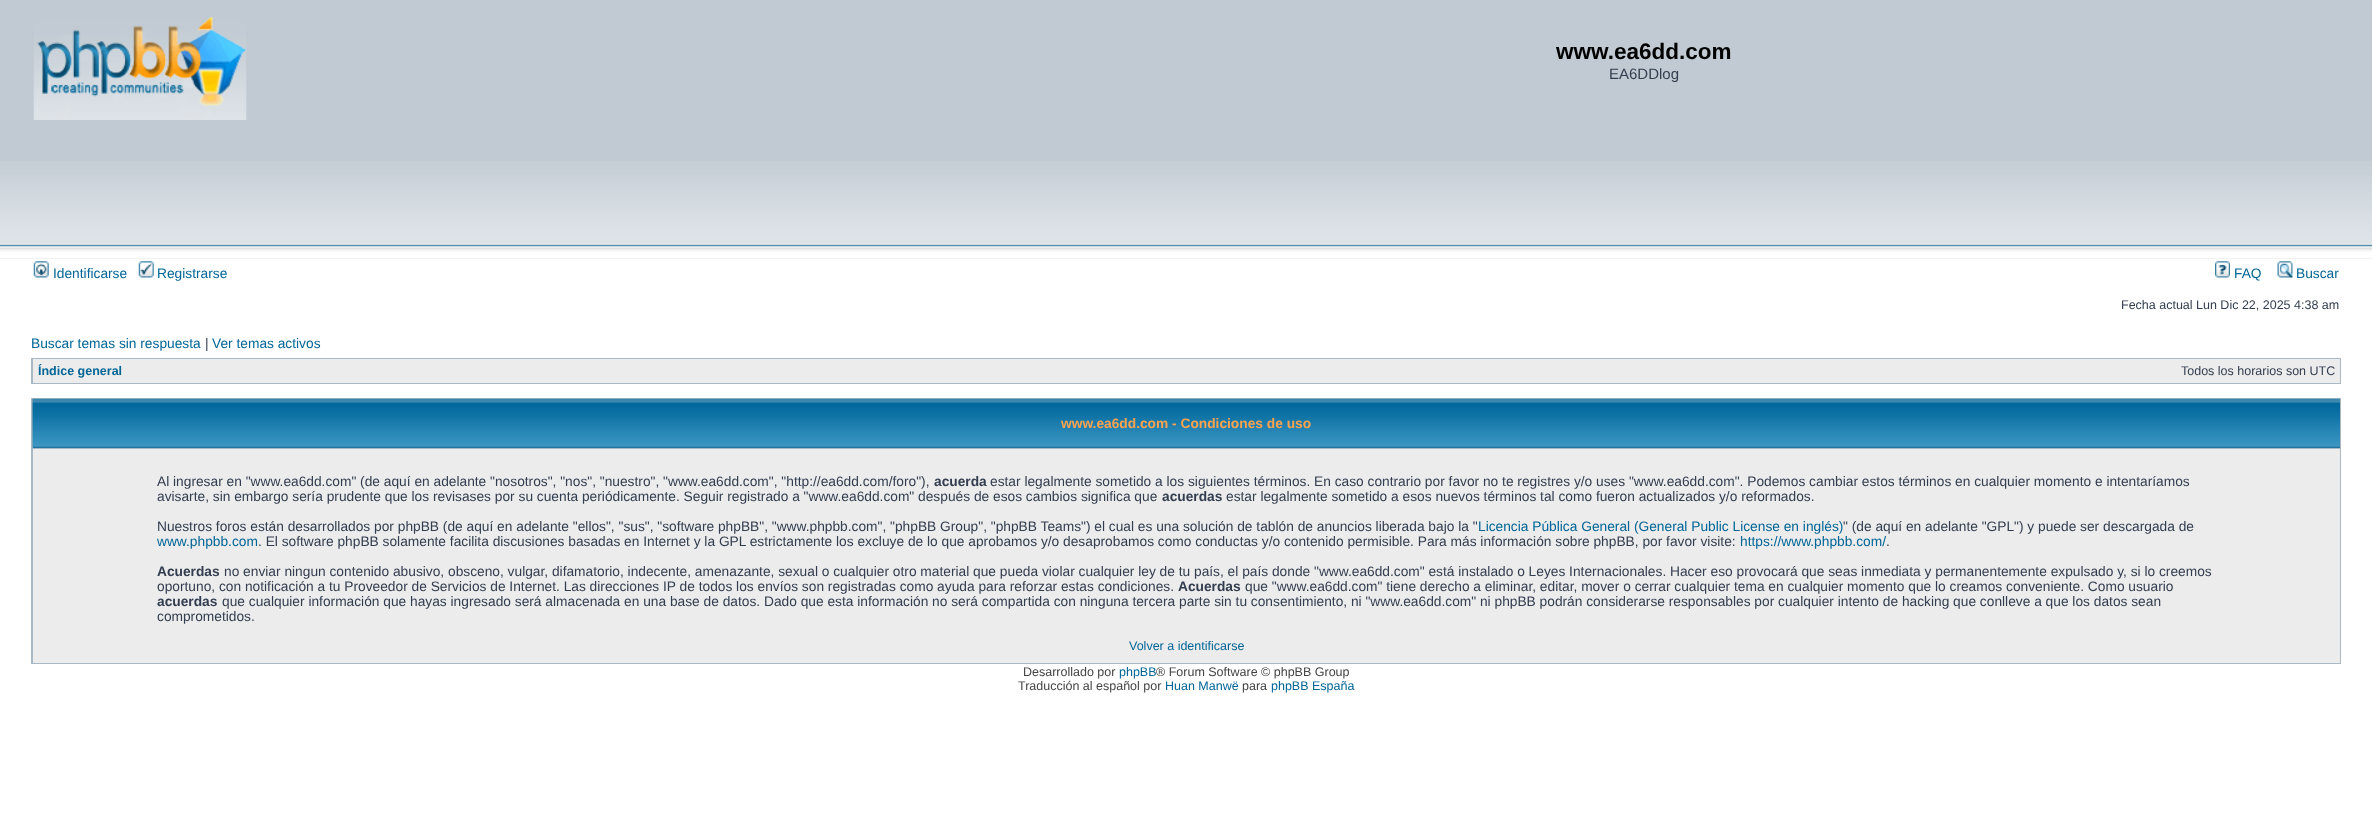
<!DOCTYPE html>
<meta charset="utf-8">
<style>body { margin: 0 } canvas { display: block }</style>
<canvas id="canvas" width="2372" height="830"></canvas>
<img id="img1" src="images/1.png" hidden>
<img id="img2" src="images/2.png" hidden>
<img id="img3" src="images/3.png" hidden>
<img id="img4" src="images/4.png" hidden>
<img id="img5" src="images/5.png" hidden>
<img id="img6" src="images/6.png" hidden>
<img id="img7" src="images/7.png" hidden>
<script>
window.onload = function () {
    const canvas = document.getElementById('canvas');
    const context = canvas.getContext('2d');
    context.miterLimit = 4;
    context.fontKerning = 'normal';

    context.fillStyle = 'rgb(255, 255, 255)';
    context.fillRect(0, 0, 2372, 830);
    context.fillStyle = 'rgb(193, 202, 210)';
    context.fillRect(0, 0, 2372, 259);
    context.drawImage(document.getElementById('img1'), 0, 161, 2372, 98);
    context.drawImage(document.getElementById('img2'), 33, 17, 214, 103);
    context.drawImage(document.getElementById('img3'), 33, 261, 16, 17);
    context.drawImage(document.getElementById('img4'), 138, 261, 16, 17);
    context.drawImage(document.getElementById('img5'), 2215, 261, 15, 17);
    context.drawImage(document.getElementById('img6'), 2277, 261, 16, 17);
    context.fillStyle = 'rgb(169, 184, 194)';
    context.fillRect(31, 358, 2310, 26);
    context.fillStyle = 'rgb(236, 236, 236)';
    context.fillRect(33, 359, 2307, 24);
    context.fillStyle = 'rgb(169, 184, 194)';
    context.fillRect(31, 398, 2310, 266);
    context.fillStyle = 'rgb(0, 102, 153)';
    context.fillRect(33, 447, 2307, 1);
    context.drawImage(document.getElementById('img7'), 32, 398, 2308, 50);
    context.fillStyle = 'rgb(236, 236, 236)';
    context.fillRect(33, 449, 2307, 214);
    context.font = 'bold 22.5px Liberation Sans';
    context.fillStyle = 'rgb(0, 0, 0)';
    context.fillText('www.ea6dd.com', 1556, 59);
    context.font = '15px Liberation Sans';
    context.fillStyle = 'rgb(50, 61, 79)';
    context.fillText('EA6DDlog', 1609, 79);
    context.font = '13.75px Liberation Sans';
    context.fillStyle = 'rgb(0, 101, 151)';
    context.fillText('Identificarse', 53, 278);
    context.fillText('Registrarse', 157, 278);
    context.fillText('FAQ', 2234, 278);
    context.fillText('Buscar', 2296, 278);
    context.font = '12.5px Liberation Sans';
    context.fillStyle = 'rgb(50, 61, 79)';
    context.fillText('Fecha actual Lun Dic 22, 2025 4:38 am', 2121, 309);
    context.font = '13.75px Liberation Sans';
    context.fillStyle = 'rgb(0, 101, 151)';
    context.fillText('Buscar temas sin respuesta', 31, 348);
    context.fillStyle = 'rgb(50, 61, 79)';
    context.fillText('|', 205, 348);
    context.fillStyle = 'rgb(0, 101, 151)';
    context.fillText('Ver temas activos', 212, 348);
    context.font = 'bold 12.5px Liberation Sans';
    context.fillText('Índice general', 38, 375);
    context.font = '12.5px Liberation Sans';
    context.fillStyle = 'rgb(50, 61, 79)';
    context.fillText('Todos los horarios son UTC', 2181, 375);
    context.font = 'bold 13.75px Liberation Sans';
    context.fillStyle = 'rgb(255, 163, 79)';
    context.fillText('www.ea6dd.com - Condiciones de uso', 1061, 428);
    context.font = '13.75px Liberation Sans';
    context.fillStyle = 'rgb(50, 61, 79)';
    context.fillText('Al ingresar en "www.ea6dd.com" (de aquí en adelante "nosotros", "nos", "nuestro", "www.ea6dd.com", "http://ea6dd.com/foro"),', 157, 486);
    context.font = 'bold 13.75px Liberation Sans';
    context.fillText('acuerda', 934, 486);
    context.font = '13.75px Liberation Sans';
    context.fillText('estar legalmente sometido a los siguientes términos. En caso contrario por favor no te registres y/o uses "www.ea6dd.com". Podemos cambiar estos términos en cualquier momento e intentaríamos', 990, 486);
    context.fillText('avisarte, sin embargo sería prudente que los revisases por su cuenta periódicamente. Seguir registrado a "www.ea6dd.com" después de esos cambios significa que', 157, 501);
    context.font = 'bold 13.75px Liberation Sans';
    context.fillText('acuerdas', 1162, 501);
    context.font = '13.75px Liberation Sans';
    context.fillText('estar legalmente sometido a esos nuevos términos tal como fueron actualizados y/o reformados.', 1226, 501);
    context.fillText('Nuestros foros están desarrollados por phpBB (de aquí en adelante "ellos", "sus", "software phpBB", "www.phpbb.com", "phpBB Group", "phpBB Teams") el cual es una solución de tablón de anuncios liberada bajo la "', 157, 531);
    context.fillStyle = 'rgb(0, 101, 151)';
    context.fillText('Licencia Pública General (General Public License en inglés)', 1478, 531);
    context.fillStyle = 'rgb(50, 61, 79)';
    context.fillText('" (de aquí en adelante "GPL") y puede ser descargada de', 1843, 531);
    context.fillStyle = 'rgb(0, 101, 151)';
    context.fillText('www.phpbb.com', 157, 546);
    context.fillStyle = 'rgb(50, 61, 79)';
    context.fillText('. El software phpBB solamente facilita discusiones basadas en Internet y la GPL estrictamente los excluye de lo que aprobamos y/o desaprobamos como conductas y/o contenido permisible. Para más información sobre phpBB, por favor visite:', 258, 546);
    context.fillStyle = 'rgb(0, 101, 151)';
    context.fillText('https://www.phpbb.com/', 1740, 546);
    context.fillStyle = 'rgb(50, 61, 79)';
    context.fillText('.', 1886, 546);
    context.font = 'bold 13.75px Liberation Sans';
    context.fillText('Acuerdas', 157, 576);
    context.font = '13.75px Liberation Sans';
    context.fillText('no enviar ningun contenido abusivo, obsceno, vulgar, difamatorio, indecente, amenazante, sexual o cualquier otro material que pueda violar cualquier ley de tu país, el país donde "www.ea6dd.com" está instalado o Leyes Internacionales. Hacer eso provocará que seas inmediata y permanentemente expulsado y, si lo creemos', 224, 576);
    context.fillText('oportuno, con notificación a tu Proveedor de Servicios de Internet. Las direcciones IP de todos los envíos son registradas como ayuda para reforzar estas condiciones.', 157, 591);
    context.font = 'bold 13.75px Liberation Sans';
    context.fillText('Acuerdas', 1178, 591);
    context.font = '13.75px Liberation Sans';
    context.fillText('que "www.ea6dd.com" tiene derecho a eliminar, editar, mover o cerrar cualquier tema en cualquier momento que lo creamos conveniente. Como usuario', 1245, 591);
    context.font = 'bold 13.75px Liberation Sans';
    context.fillText('acuerdas', 157, 606);
    context.font = '13.75px Liberation Sans';
    context.fillText('que cualquier información que hayas ingresado será almacenada en una base de datos. Dado que esta información no será compartida con ninguna tercera parte sin tu consentimiento, ni "www.ea6dd.com" ni phpBB podrán considerarse responsables por cualquier intento de hacking que conlleve a que los datos sean', 222, 606);
    context.fillText('comprometidos.', 157, 621);
    context.font = '12.5px Liberation Sans';
    context.fillStyle = 'rgb(0, 101, 151)';
    context.fillText('Volver a identificarse', 1129, 650);
    context.fillStyle = 'rgb(68, 68, 68)';
    context.fillText('Desarrollado por', 1023, 676);
    context.fillStyle = 'rgb(0, 101, 151)';
    context.fillText('phpBB', 1119, 676);
    context.fillStyle = 'rgb(68, 68, 68)';
    context.fillText('® Forum Software © phpBB Group', 1156, 676);
    context.fillText('Traducción al español por', 1018, 690);
    context.fillStyle = 'rgb(0, 101, 151)';
    context.fillText('Huan Manwë', 1165, 690);
    context.fillStyle = 'rgb(68, 68, 68)';
    context.fillText('para', 1242, 690);
    context.fillStyle = 'rgb(0, 101, 151)';
    context.fillText('phpBB España', 1271, 690);
};
</script>
